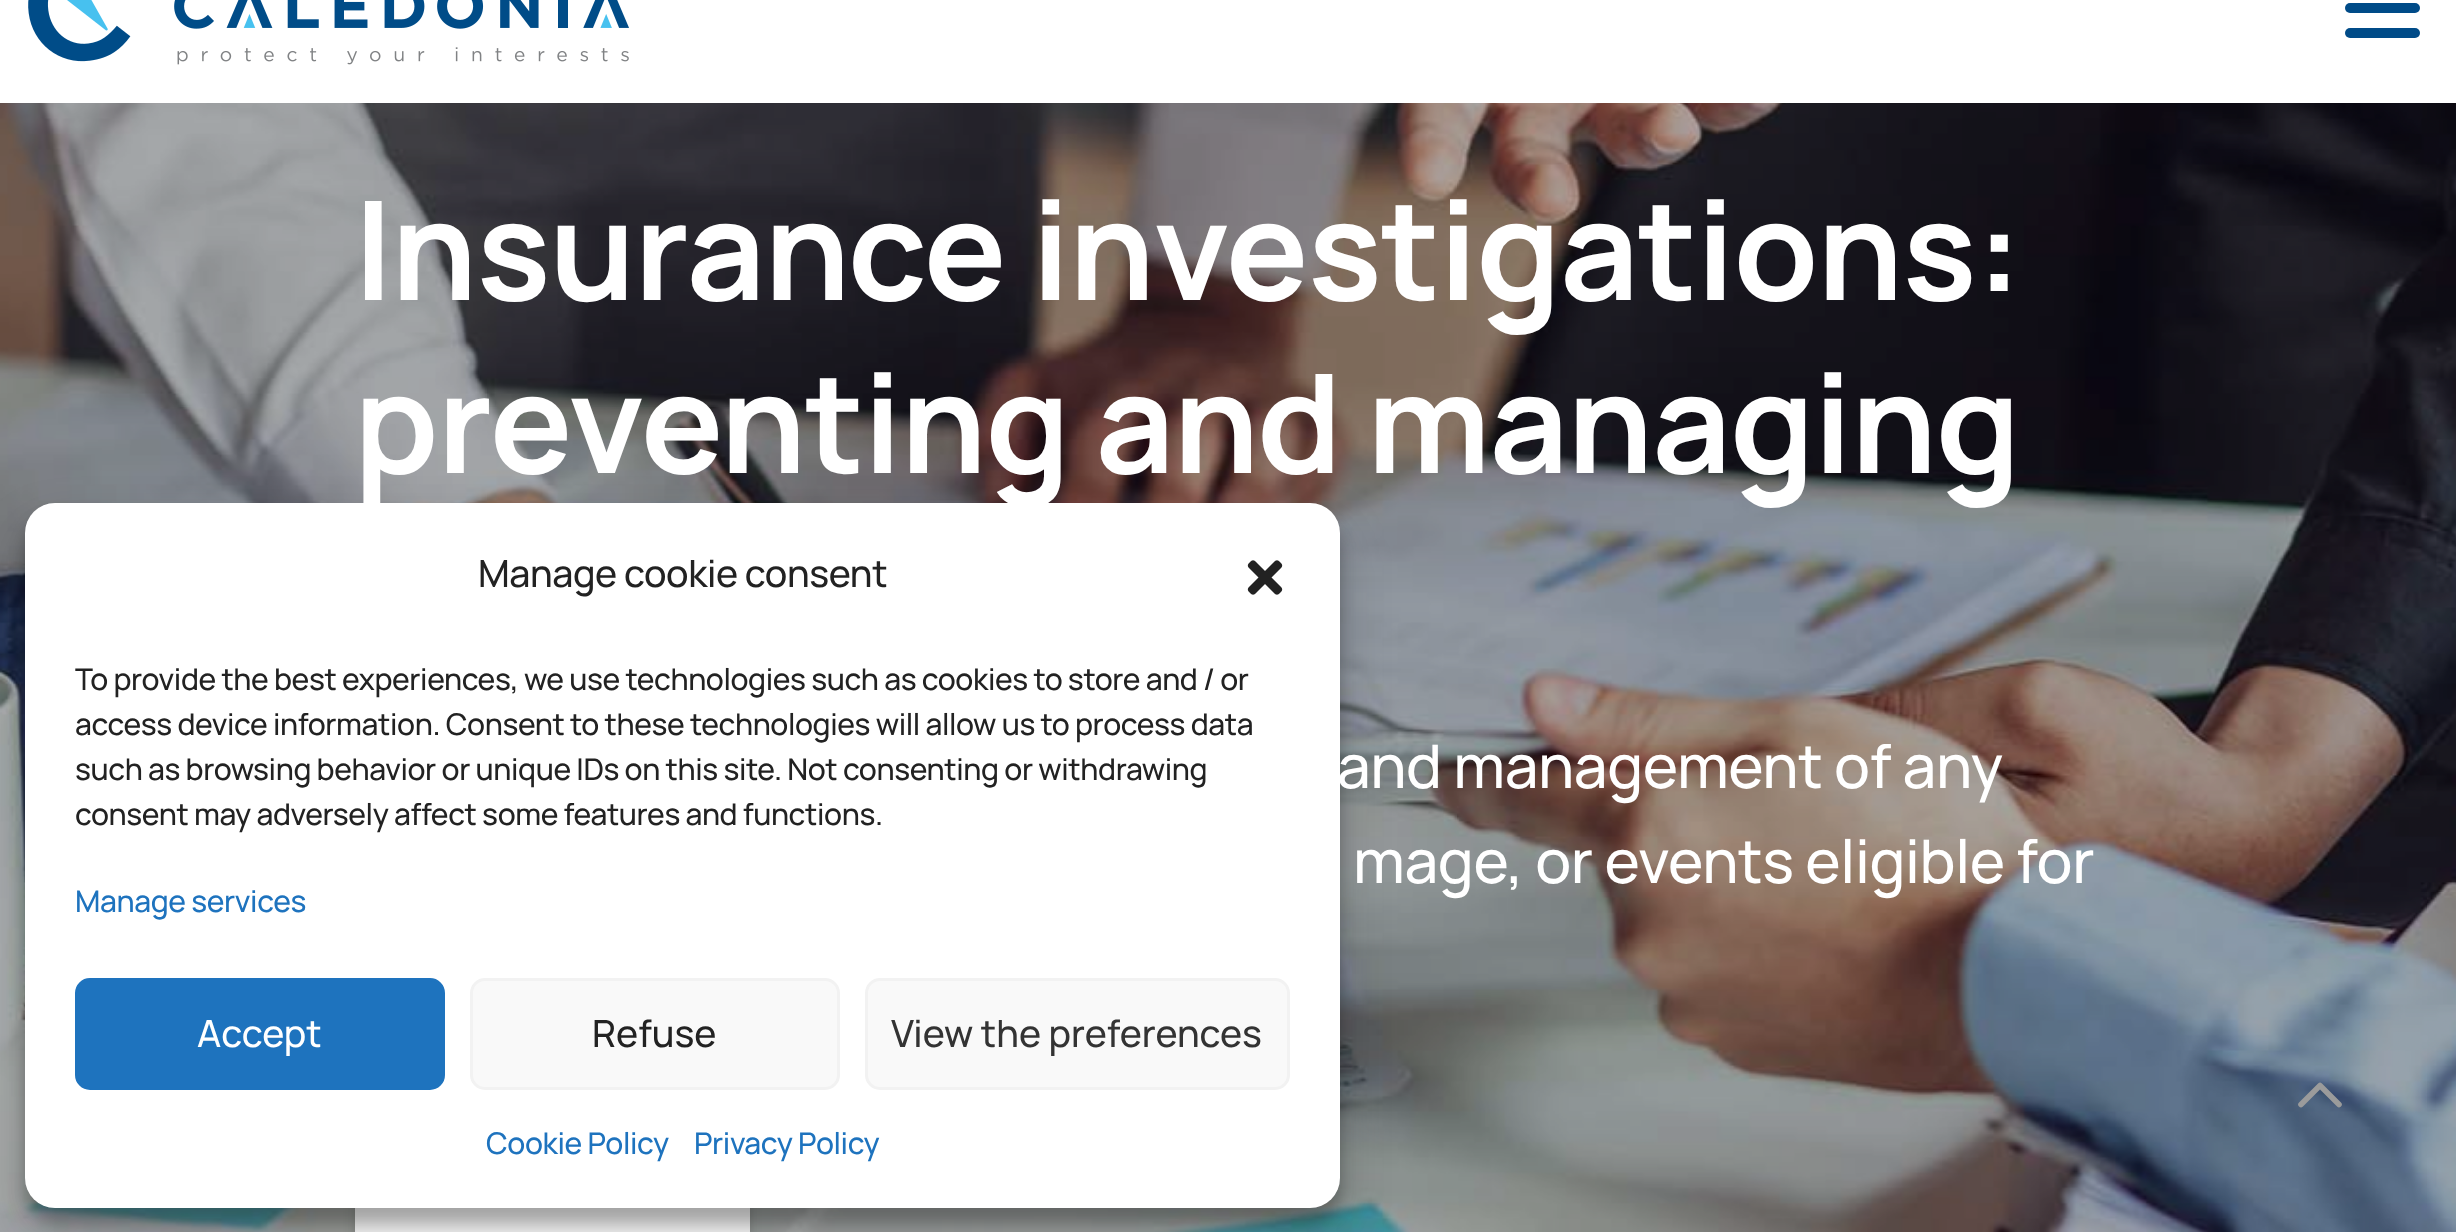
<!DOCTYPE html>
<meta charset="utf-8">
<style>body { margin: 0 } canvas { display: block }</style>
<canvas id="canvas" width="2456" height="1232"></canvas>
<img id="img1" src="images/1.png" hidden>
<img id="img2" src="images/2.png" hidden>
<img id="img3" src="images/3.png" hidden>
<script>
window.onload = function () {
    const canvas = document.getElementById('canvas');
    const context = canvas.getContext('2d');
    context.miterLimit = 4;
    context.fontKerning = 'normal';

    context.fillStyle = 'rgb(0, 0, 0)';
    context.fillRect(0, 0, 2456, 1232);
    context.fillStyle = 'rgb(255, 255, 255)';
    context.fillRect(0, 0, 2456, 103);
    context.drawImage(document.getElementById('img1'), 28, 0, 601, 65);
    context.fillStyle = 'rgb(0, 75, 136)';
    context.beginPath();
    context.roundRect(2345, 3, 75, 10, 5);
    context.fill();
    context.beginPath();
    context.roundRect(2345, 28, 75, 10, 5);
    context.fill();
    context.drawImage(document.getElementById('img2'), 0, 103, 2456, 1129);
    context.fillStyle = 'rgba(0, 0, 0, 0.15)';
    context.filter = 'blur(6px)';
    context.beginPath();
    context.roundRect(355, 1133, 395, 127, 10);
    context.fill();
    context.filter = 'none';
    context.fillStyle = 'rgb(255, 255, 255)';
    context.fillRect(355, 1208, 395, 24);
    context.fillStyle = 'rgba(0, 0, 0, 0.23)';
    context.filter = 'blur(7.5px)';
    context.beginPath();
    context.roundRect(25, 518, 1315, 705, 30);
    context.fill();
    context.filter = 'none';
    context.fillStyle = 'rgba(0, 0, 0, 0.19)';
    context.filter = 'blur(25px)';
    context.beginPath();
    context.roundRect(25, 528, 1315, 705, 30);
    context.fill();
    context.filter = 'none';
    context.fillStyle = 'rgb(255, 255, 255)';
    context.beginPath();
    context.roundRect(25, 503, 1315, 705, 30);
    context.fill();
    context.drawImage(document.getElementById('img3'), 1247, 560, 36, 35);
    context.fillStyle = 'rgb(30, 115, 190)';
    context.beginPath();
    context.roundRect(76.5, 979.5, 367, 109, 13.5);
    context.fill();
    context.strokeStyle = 'rgb(30, 115, 190)';
    context.lineWidth = 3;
    context.stroke();
    context.fillStyle = 'rgb(249, 249, 249)';
    context.beginPath();
    context.roundRect(471.5, 979.5, 367, 109, 13.5);
    context.fill();
    context.strokeStyle = 'rgb(242, 242, 242)';
    context.stroke();
    context.beginPath();
    context.roundRect(866.5, 979.5, 422, 109, 13.5);
    context.fill();
    context.stroke();
    context.beginPath();
    context.moveTo(2301, 1104.5);
    context.lineTo(2320, 1085.5);
    context.lineTo(2339, 1104.5);
    context.strokeStyle = 'rgb(155, 155, 155)';
    context.lineWidth = 5.6;
    context.lineCap = 'round';
    context.lineJoin = 'round';
    context.stroke();
    context.letterSpacing = '-1.2px';
    context.font = 'bold 137.5px Manrope';
    context.fillStyle = 'rgb(255, 255, 255)';
    context.fillText('Insurance investigations:', 354, 300);
    context.fillText('preventing and managing', 354, 473);
    context.letterSpacing = '-0.4px';
    context.font = '500 60px Manrope';
    context.fillText('and management of any', 1337, 788);
    context.fillText('mage, or events eligible for', 1353, 883);
    context.font = '500 37.5px Manrope';
    context.fillStyle = 'rgb(34, 34, 34)';
    context.fillText('Manage cookie consent', 478, 587);
    context.font = '500 30px Manrope';
    context.fillText('To provide the best experiences, we use technologies such as cookies to store and / or', 75, 690);
    context.fillText('access device information. Consent to these technologies will allow us to process data', 75, 735);
    context.fillText('such as browsing behavior or unique IDs on this site. Not consenting or withdrawing', 75, 780);
    context.fillText('consent may adversely affect some features and functions.', 75, 825);
    context.fillStyle = 'rgb(30, 115, 190)';
    context.fillText('Manage services', 75, 912);
    context.letterSpacing = '0px';
    context.font = '500 37.5px Manrope';
    context.fillStyle = 'rgb(255, 255, 255)';
    context.fillText('Accept', 197, 1047);
    context.fillStyle = 'rgb(34, 34, 34)';
    context.fillText('Refuse', 592, 1047);
    context.fillStyle = 'rgb(51, 51, 51)';
    context.fillText('View the preferences', 891, 1047);
    context.letterSpacing = '-0.4px';
    context.font = '500 30px Manrope';
    context.fillStyle = 'rgb(30, 115, 190)';
    context.fillText('Cookie Policy', 486, 1154);
    context.fillText('Privacy Policy', 694, 1154);
};
</script>
